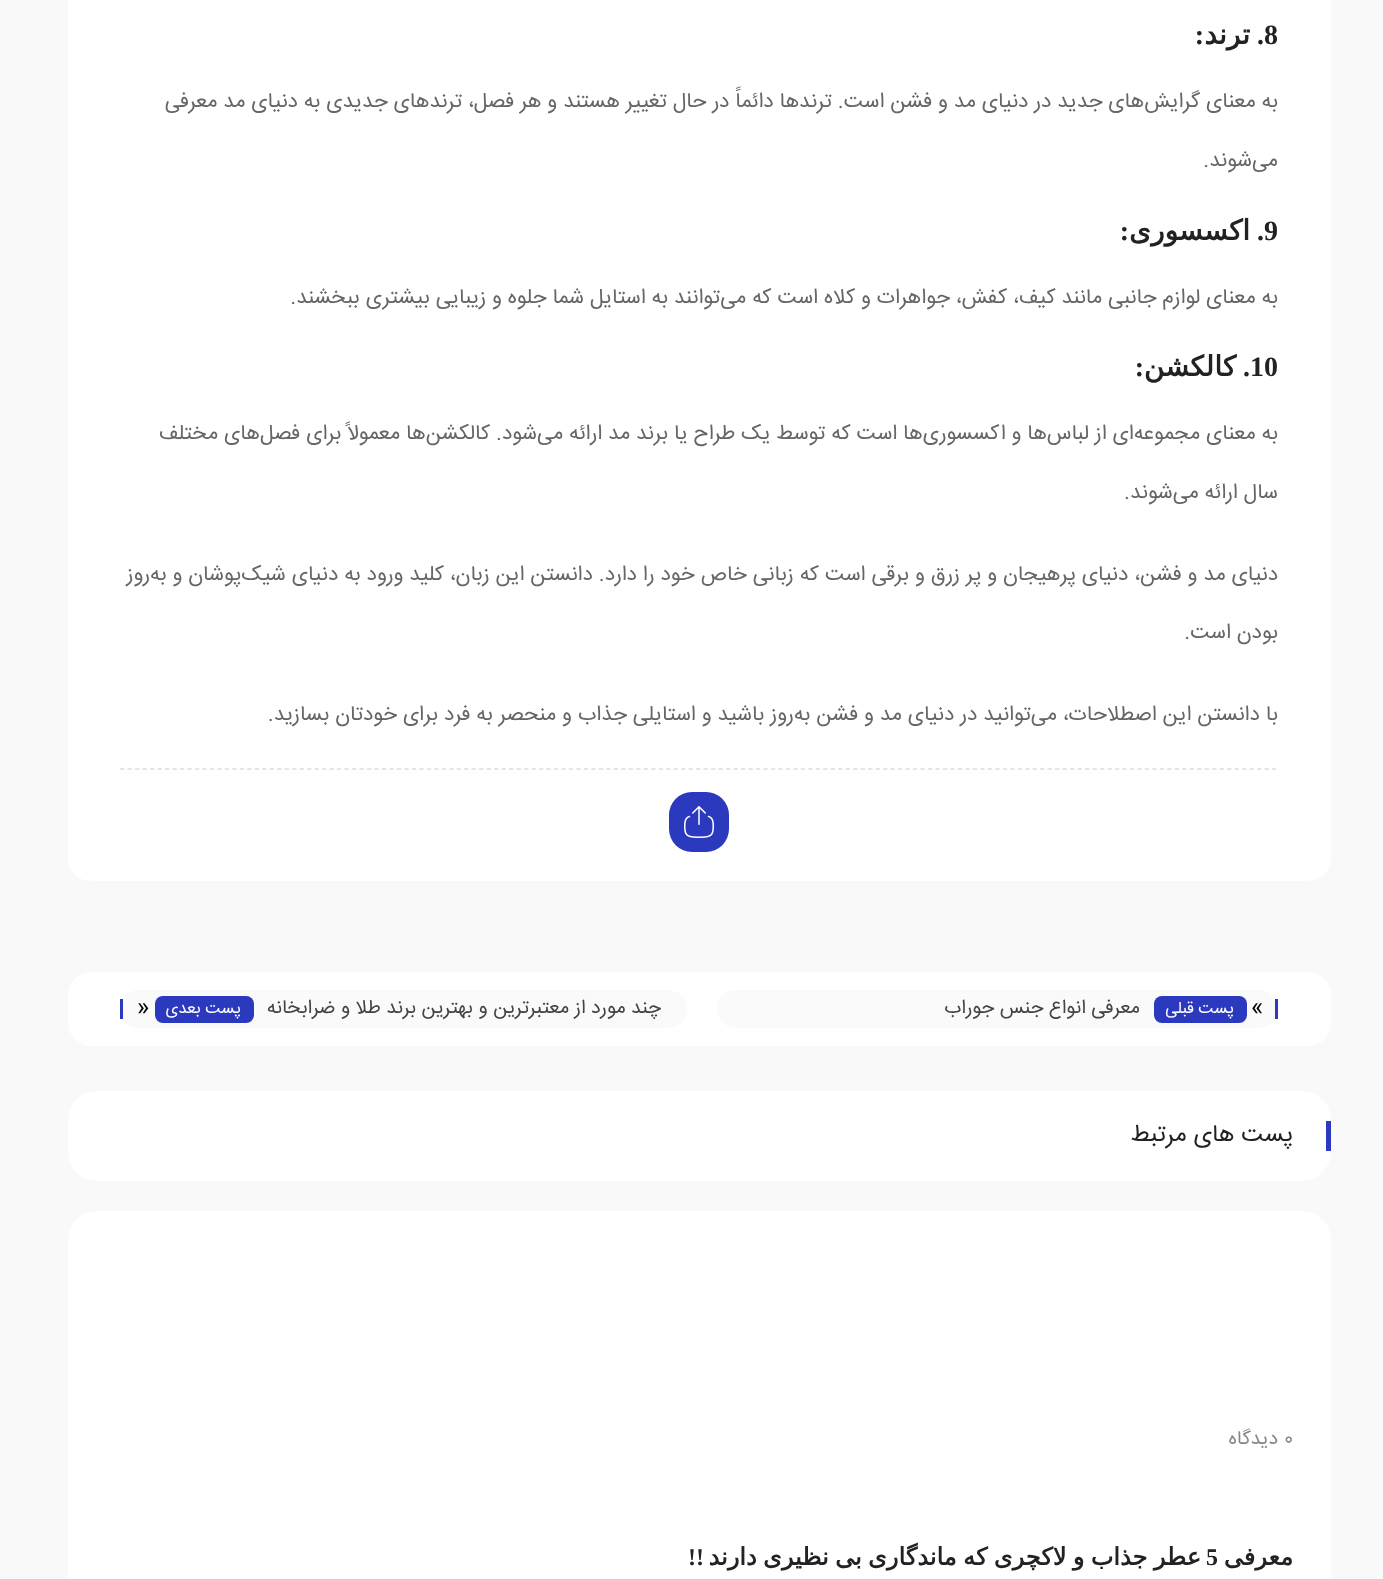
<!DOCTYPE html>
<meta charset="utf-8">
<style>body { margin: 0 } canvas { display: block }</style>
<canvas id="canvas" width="1383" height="1579"></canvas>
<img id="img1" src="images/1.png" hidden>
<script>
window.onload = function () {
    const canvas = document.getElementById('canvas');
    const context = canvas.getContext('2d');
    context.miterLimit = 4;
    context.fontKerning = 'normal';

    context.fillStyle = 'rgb(249, 249, 249)';
    context.fillRect(0, 0, 1383, 1579);
    context.fillStyle = 'rgb(255, 255, 255)';
    context.beginPath();
    context.roundRect(68, -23, 1263, 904, 23);
    context.fill();
    context.beginPath();
    context.moveTo(120, 769);
    context.lineTo(1278, 769);
    context.strokeStyle = 'rgb(222, 222, 222)';
    context.lineWidth = 1.5;
    context.setLineDash([4.5, 2.98]);
    context.stroke();
    context.fillStyle = 'rgb(43, 57, 190)';
    context.beginPath();
    context.roundRect(669, 792, 60, 60, 23);
    context.fill();
    context.drawImage(document.getElementById('img1'), 684, 806, 30, 32);
    context.fillStyle = 'rgb(255, 255, 255)';
    context.beginPath();
    context.roundRect(68, 972, 1263, 74, 23);
    context.fill();
    context.fillStyle = 'rgb(250, 250, 250)';
    context.beginPath();
    context.roundRect(717, 990, 561, 38, 19);
    context.fill();
    context.fillStyle = 'rgb(43, 57, 190)';
    context.fillRect(1275, 999, 3, 20);
    context.beginPath();
    context.roundRect(1154, 996, 93, 27, 8);
    context.fill();
    context.fillStyle = 'rgb(250, 250, 250)';
    context.beginPath();
    context.roundRect(120, 990, 567, 38, 19);
    context.fill();
    context.fillStyle = 'rgb(43, 57, 190)';
    context.fillRect(120, 999, 3, 20);
    context.beginPath();
    context.roundRect(155, 996, 99, 27, 8);
    context.fill();
    context.fillStyle = 'rgb(255, 255, 255)';
    context.beginPath();
    context.roundRect(68, 1091, 1263, 90, 29);
    context.fill();
    context.fillStyle = 'rgb(43, 57, 190)';
    context.fillRect(1326, 1121, 5, 30);
    context.fillStyle = 'rgb(255, 255, 255)';
    context.beginPath();
    context.roundRect(68, 1211, 1263, 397, 29);
    context.fill();
    context.font = 'bold 28px Liberation Serif';
    context.fillStyle = 'rgb(34, 34, 34)';
    context.fillText('8', 1264, 44);
    context.direction = 'rtl';
    context.fillText('.', 1264, 44);
    context.font = 'bold 28px DejaVu Sans';
    context.fillText('ترند', 1250, 44);
    context.font = 'bold 28px Liberation Serif';
    context.fillText(':', 1204, 44);
    context.font = '21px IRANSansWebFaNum';
    context.fillStyle = 'rgb(102, 102, 102)';
    context.fillText('به معنای گرایش‌های جدید در دنیای مد و فشن است. ترندها دائماً در حال تغییر هستند و هر فصل، ترندهای جدیدی به دنیای مد معرفی', 1278, 107);
    context.fillText('می‌شوند.', 1278, 166);
    context.direction = 'ltr';
    context.font = 'bold 28px Liberation Serif';
    context.fillStyle = 'rgb(34, 34, 34)';
    context.fillText('9', 1264, 240);
    context.direction = 'rtl';
    context.fillText('.', 1264, 240);
    context.font = 'bold 28px DejaVu Sans';
    context.fillText('اکسسوری', 1250, 240);
    context.font = 'bold 28px Liberation Serif';
    context.fillText(':', 1129, 240);
    context.font = '21px IRANSansWebFaNum';
    context.fillStyle = 'rgb(102, 102, 102)';
    context.fillText('به معنای لوازم جانبی مانند کیف، کفش، جواهرات و کلاه است که می‌توانند به استایل شما جلوه و زیبایی بیشتری ببخشند.', 1278, 303);
    context.direction = 'ltr';
    context.font = 'bold 28px Liberation Serif';
    context.fillStyle = 'rgb(34, 34, 34)';
    context.fillText('10', 1250, 376);
    context.direction = 'rtl';
    context.fillText('.', 1250, 376);
    context.font = 'bold 28px DejaVu Sans';
    context.fillText('کالکشن', 1236, 376);
    context.font = 'bold 28px Liberation Serif';
    context.fillText(':', 1144, 376);
    context.font = '21px IRANSansWebFaNum';
    context.fillStyle = 'rgb(102, 102, 102)';
    context.fillText('به معنای مجموعه‌ای از لباس‌ها و اکسسوری‌ها است که توسط یک طراح یا برند مد ارائه می‌شود. کالکشن‌ها معمولاً برای فصل‌های مختلف', 1278, 439);
    context.fillText('سال ارائه می‌شوند.', 1278, 498);
    context.fillText('دنیای مد و فشن، دنیای پرهیجان و پر زرق و برقی است که زبانی خاص خود را دارد. دانستن این زبان، کلید ورود به دنیای شیک‌پوشان و به‌روز', 1278, 580);
    context.fillText('بودن است.', 1278, 638);
    context.fillText('با دانستن این اصطلاحات، می‌توانید در دنیای مد و فشن به‌روز باشید و استایلی جذاب و منحصر به فرد برای خودتان بسازید.', 1278, 720);
    context.direction = 'ltr';
    context.font = '24px IRANSansWebFaNum';
    context.fillStyle = 'rgb(0, 0, 0)';
    context.fillText('«', 1251, 1014);
    context.direction = 'rtl';
    context.font = '16.5px IRANSansWebFaNum';
    context.fillStyle = 'rgb(255, 255, 255)';
    context.fillText('پست قبلی', 1234, 1013);
    context.font = '19.5px IRANSansWebFaNum';
    context.fillStyle = 'rgb(68, 68, 68)';
    context.fillText('معرفی انواع جنس جوراب', 1140, 1013);
    context.fillText('چند مورد از معتبرترین و بهترین برند طلا و ضرابخانه', 661, 1013);
    context.font = '16.5px IRANSansWebFaNum';
    context.fillStyle = 'rgb(255, 255, 255)';
    context.fillText('پست بعدی', 241, 1013);
    context.direction = 'ltr';
    context.font = '24px IRANSansWebFaNum';
    context.fillStyle = 'rgb(0, 0, 0)';
    context.fillText('»', 137, 1014);
    context.direction = 'rtl';
    context.fillStyle = 'rgb(34, 34, 34)';
    context.fillText('پست های مرتبط', 1293, 1141);
    context.direction = 'ltr';
    context.font = '19.5px IRANSansWebFaNum';
    context.fillStyle = 'rgb(135, 135, 135)';
    context.fillText('0', 1284, 1444);
    context.direction = 'rtl';
    context.fillText('دیدگاه', 1278, 1444);
    context.font = 'bold 24px DejaVu Sans';
    context.fillStyle = 'rgb(34, 34, 34)';
    context.fillText('معرفی', 1293, 1565);
    context.direction = 'ltr';
    context.font = 'bold 24px Liberation Serif';
    context.fillText('5', 1206, 1565);
    context.wordSpacing = '-1.25px';
    context.direction = 'rtl';
    context.font = 'bold 24px DejaVu Sans';
    context.fillText('عطر جذاب و لاکچری که ماندگاری بی نظیری دارند', 1201, 1565);
    context.wordSpacing = '0px';
    context.font = 'bold 24px Liberation Serif';
    context.fillText('!!', 704, 1565);
};
</script>
